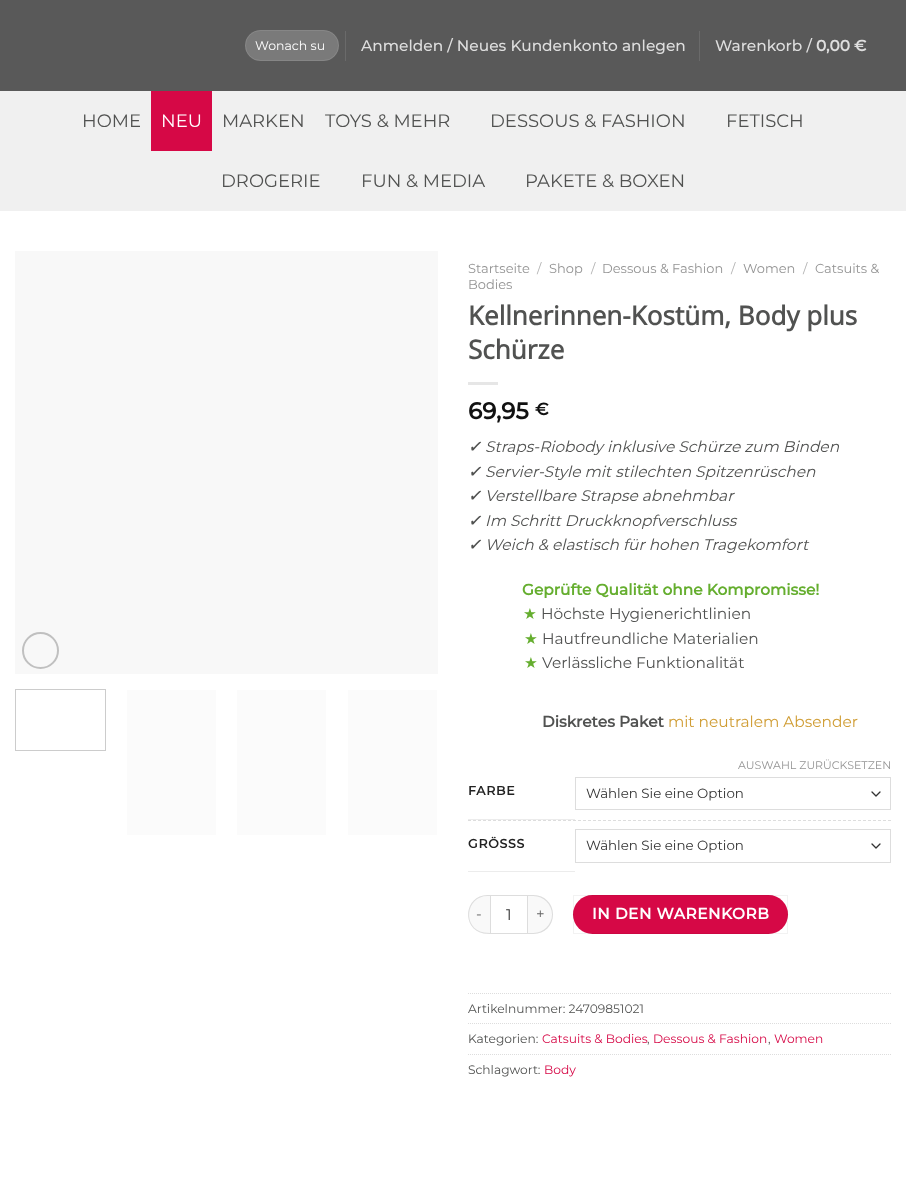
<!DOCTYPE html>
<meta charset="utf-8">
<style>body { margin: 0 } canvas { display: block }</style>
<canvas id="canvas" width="906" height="1185"></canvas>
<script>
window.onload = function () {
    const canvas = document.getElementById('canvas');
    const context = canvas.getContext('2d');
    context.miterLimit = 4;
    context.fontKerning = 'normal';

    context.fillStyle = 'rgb(255, 255, 255)';
    context.fillRect(0, 0, 906, 1185);
    context.fillStyle = 'rgb(89, 89, 89)';
    context.fillRect(0, 0, 906, 91);
    context.fillStyle = 'rgb(122, 122, 122)';
    context.beginPath();
    context.roundRect(245, 30, 94, 31, 15.5);
    context.fill();
    context.beginPath();
    context.roundRect(245.5, 30.5, 93, 30, 15);
    context.strokeStyle = 'rgba(255, 255, 255, 0.09)';
    context.stroke();
    context.fillStyle = 'rgb(106, 106, 106)';
    context.fillRect(345, 31, 1, 30);
    context.fillRect(699, 31, 1, 30);
    context.fillStyle = 'rgb(240, 240, 240)';
    context.fillRect(0, 91, 906, 120);
    context.fillStyle = 'rgb(214, 8, 70)';
    context.fillRect(151, 91, 61, 60);
    context.fillStyle = 'rgb(248, 248, 248)';
    context.fillRect(15, 251, 423, 423);
    context.beginPath();
    context.arc(40.5, 650.5, 17.5, 0, 2 * Math.PI);
    context.strokeStyle = 'rgb(192, 192, 192)';
    context.lineWidth = 2;
    context.stroke();
    context.strokeStyle = 'rgb(204, 204, 204)';
    context.lineWidth = 1;
    context.strokeRect(15.5, 689.5, 90, 61);
    context.fillStyle = 'rgb(251, 251, 251)';
    context.fillRect(127, 690, 89, 145);
    context.fillRect(237, 690, 89, 145);
    context.fillRect(348, 690, 89, 145);
    context.fillStyle = 'rgb(230, 230, 230)';
    context.fillRect(468, 382, 30, 3);
    context.beginPath();
    context.moveTo(468, 820.5);
    context.lineTo(891, 820.5);
    context.strokeStyle = 'rgb(221, 221, 221)';
    context.setLineDash([3, 2]);
    context.stroke();
    context.fillStyle = 'rgb(236, 236, 236)';
    context.fillRect(468, 871, 107, 1);
    context.beginPath();
    context.moveTo(872, 844);
    context.lineTo(876, 848);
    context.lineTo(880, 844);
    context.strokeStyle = 'rgb(51, 51, 51)';
    context.lineWidth = 1.3;
    context.lineCap = 'round';
    context.lineJoin = 'round';
    context.setLineDash([]);
    context.stroke();
    context.strokeStyle = 'rgb(221, 221, 221)';
    context.lineWidth = 1;
    context.lineJoin = 'miter';
    context.strokeRect(575.5, 829.5, 315, 33);
    context.fillRect(468, 819, 107, 1);
    context.beginPath();
    context.moveTo(872, 792);
    context.lineTo(876, 796);
    context.lineTo(880, 792);
    context.strokeStyle = 'rgb(51, 51, 51)';
    context.lineWidth = 1.3;
    context.lineJoin = 'round';
    context.stroke();
    context.strokeStyle = 'rgb(221, 221, 221)';
    context.lineWidth = 1;
    context.lineJoin = 'miter';
    context.strokeRect(575.5, 777.5, 315, 32);
    context.fillStyle = 'rgb(249, 249, 249)';
    context.beginPath();
    context.roundRect(468, 895, 22, 39, [19.5, 0, 0, 19.5]);
    context.fill();
    context.fillStyle = 'rgb(221, 221, 221)';
    context.beginPath();
    context.moveTo(487.5, 895);
    context.lineTo(490, 895);
    context.lineTo(490, 934);
    context.lineTo(483.5, 933.5);
    context.bezierCurveTo(461, 929, 464, 895, 487.5, 895);
    context.closePath();
    context.moveTo(487.5, 896);
    context.lineTo(490, 896);
    context.lineTo(490, 933);
    context.lineTo(484, 932.5);
    context.bezierCurveTo(462, 928.5, 465.5, 896, 487.5, 896);
    context.closePath();
    context.fill('evenodd');
    context.strokeRect(490.5, 895.5, 37, 38);
    context.fillStyle = 'rgb(249, 249, 249)';
    context.beginPath();
    context.roundRect(528, 895, 25, 39, [0, 19.5, 19.5, 0]);
    context.fill();
    context.fillStyle = 'rgb(221, 221, 221)';
    context.beginPath();
    context.moveTo(528, 895);
    context.lineTo(533.5, 895);
    context.bezierCurveTo(544.5, 895, 553, 903.5, 553, 914.5);
    context.bezierCurveTo(553, 925.5, 544.5, 934, 533.5, 934);
    context.lineTo(528, 934);
    context.closePath();
    context.moveTo(528, 896);
    context.lineTo(533.5, 896);
    context.bezierCurveTo(543.5, 896, 552, 904.5, 552, 914.5);
    context.bezierCurveTo(552, 924.5, 543.5, 933, 533.5, 933);
    context.lineTo(528, 933);
    context.closePath();
    context.fill('evenodd');
    context.fillStyle = 'rgb(214, 8, 70)';
    context.beginPath();
    context.roundRect(573, 895, 215, 39, 19.5);
    context.fill();
    context.strokeStyle = 'rgba(0, 0, 0, 0.05)';
    context.strokeRect(573.5, 895.5, 214, 38);
    context.beginPath();
    context.moveTo(468, 993.5);
    context.lineTo(891, 993.5);
    context.strokeStyle = 'rgb(221, 221, 221)';
    context.lineCap = 'butt';
    context.setLineDash([1, 1]);
    context.stroke();
    context.beginPath();
    context.moveTo(468, 1023.5);
    context.lineTo(891, 1023.5);
    context.stroke();
    context.beginPath();
    context.moveTo(468, 1054.5);
    context.lineTo(891, 1054.5);
    context.stroke();
    context.save();
    context.beginPath();
    context.rect(255, 38, 70, 15);
    context.clip();
    context.font = '12.5px Montserrat';
    context.fillStyle = 'rgb(255, 255, 255)';
    context.fillText('Wonach su', 255, 50);
    context.restore();
    context.font = '500 15.4px Montserrat';
    context.fillStyle = 'rgb(222, 222, 222)';
    context.fillText('Anmelden / Neues Kundenkonto anlegen', 361, 51);
    context.fillText('Warenkorb /', 715, 51);
    context.font = 'bold 15.4px Montserrat';
    context.fillText('0,00 €', 816, 51);
    context.font = '18px Montserrat';
    context.fillStyle = 'rgb(81, 82, 81)';
    context.fillText('HOME', 82, 127);
    context.fillStyle = 'rgb(255, 255, 255)';
    context.fillText('NEU', 161, 127);
    context.fillStyle = 'rgb(81, 82, 81)';
    context.fillText('MARKEN', 222, 127);
    context.fillText('TOYS & MEHR', 325, 127);
    context.fillText('DESSOUS & FASHION', 490, 127);
    context.fillText('FETISCH', 726, 127);
    context.fillText('DROGERIE', 221, 187);
    context.fillText('FUN & MEDIA', 361, 187);
    context.fillText('PAKETE & BOXEN', 525, 187);
    context.font = '13px Montserrat';
    context.fillStyle = 'rgb(148, 148, 148)';
    context.fillText('Startseite', 468, 273);
    context.fillStyle = 'rgb(178, 178, 178)';
    context.fillText('/', 537, 273);
    context.fillStyle = 'rgb(148, 148, 148)';
    context.fillText('Shop', 549, 273);
    context.fillStyle = 'rgb(178, 178, 178)';
    context.fillText('/', 591, 273);
    context.fillStyle = 'rgb(148, 148, 148)';
    context.fillText('Dessous & Fashion', 602, 273);
    context.fillStyle = 'rgb(178, 178, 178)';
    context.fillText('/', 731, 273);
    context.fillStyle = 'rgb(148, 148, 148)';
    context.fillText('Women', 743, 273);
    context.fillStyle = 'rgb(178, 178, 178)';
    context.fillText('/', 803, 273);
    context.fillStyle = 'rgb(148, 148, 148)';
    context.fillText('Catsuits &', 815, 273);
    context.fillText('Bodies', 468, 289);
    context.font = 'bold 26.1px Open Sans';
    context.fillStyle = 'rgb(81, 82, 81)';
    context.fillText('Kellnerinnen-Kostüm, Body plus', 468, 325);
    context.fillText('Schürze', 468, 359);
    context.font = 'bold 23px Montserrat';
    context.fillStyle = 'rgb(17, 17, 17)';
    context.fillText('69,95', 468, 419);
    context.font = 'bold 17px Montserrat';
    context.fillText('€', 535, 415);
    context.font = 'italic bold 15.4px DejaVu Sans';
    context.fillStyle = 'rgb(81, 82, 81)';
    context.fillText('✓', 468, 452);
    context.font = 'italic 15.4px Montserrat';
    context.fillText('Straps-Riobody inklusive Schürze zum Binden', 485, 452);
    context.font = 'italic bold 15.4px DejaVu Sans';
    context.fillText('✓', 468, 477);
    context.font = 'italic 15.4px Montserrat';
    context.fillText('Servier-Style mit stilechten Spitzenrüschen', 485, 477);
    context.font = 'italic bold 15.4px DejaVu Sans';
    context.fillText('✓', 468, 501);
    context.font = 'italic 15.4px Montserrat';
    context.fillText('Verstellbare Strapse abnehmbar', 485, 501);
    context.font = 'italic bold 15.4px DejaVu Sans';
    context.fillText('✓', 468, 526);
    context.font = 'italic 15.4px Montserrat';
    context.fillText('Im Schritt Druckknopfverschluss', 485, 526);
    context.font = 'italic bold 15.4px DejaVu Sans';
    context.fillText('✓', 468, 550);
    context.font = 'italic 15.4px Montserrat';
    context.fillText('Weich & elastisch für hohen Tragekomfort', 485, 550);
    context.font = 'bold 15.4px Montserrat';
    context.fillStyle = 'rgb(101, 174, 47)';
    context.fillText('Geprüfte Qualität ohne Kompromisse!', 522, 595);
    context.font = '15.4px DejaVu Sans';
    context.fillText('★', 523, 619);
    context.font = '15.4px Montserrat';
    context.fillStyle = 'rgb(81, 82, 81)';
    context.fillText('Höchste Hygienerichtlinien', 541, 619);
    context.font = '15.4px DejaVu Sans';
    context.fillStyle = 'rgb(101, 174, 47)';
    context.fillText('★', 524, 644);
    context.font = '15.4px Montserrat';
    context.fillStyle = 'rgb(81, 82, 81)';
    context.fillText('Hautfreundliche Materialien', 542, 644);
    context.font = '15.4px DejaVu Sans';
    context.fillStyle = 'rgb(101, 174, 47)';
    context.fillText('★', 524, 668);
    context.font = '15.4px Montserrat';
    context.fillStyle = 'rgb(81, 82, 81)';
    context.fillText('Verlässliche Funktionalität', 542, 668);
    context.font = 'bold 15.4px Montserrat';
    context.fillText('Diskretes Paket', 542, 727);
    context.font = '15.4px Montserrat';
    context.fillStyle = 'rgb(208, 157, 52)';
    context.fillText('mit neutralem Absender', 668, 727);
    context.letterSpacing = '0.75px';
    context.font = 'bold 12.5px Montserrat';
    context.fillStyle = 'rgb(34, 34, 34)';
    context.fillText('GRÖSSS', 468, 848);
    context.letterSpacing = '0px';
    context.font = '11px Montserrat';
    context.fillStyle = 'rgb(148, 148, 148)';
    context.fillText('AUSWAHL ZURÜCKSETZEN', 738, 769);
    context.font = '13.4px Montserrat';
    context.fillStyle = 'rgb(51, 51, 51)';
    context.fillText('Wählen Sie eine Option', 586, 850);
    context.letterSpacing = '0.75px';
    context.font = 'bold 12.5px Montserrat';
    context.fillStyle = 'rgb(34, 34, 34)';
    context.fillText('FARBE', 468, 795);
    context.letterSpacing = '0px';
    context.font = '13.4px Montserrat';
    context.fillStyle = 'rgb(51, 51, 51)';
    context.fillText('Wählen Sie eine Option', 586, 798);
    context.font = '15px Montserrat';
    context.fillStyle = 'rgb(102, 102, 102)';
    context.fillText('-', 476, 919);
    context.font = '15.4px Montserrat';
    context.fillStyle = 'rgb(51, 51, 51)';
    context.fillText('1', 506, 920);
    context.font = '15px Montserrat';
    context.fillStyle = 'rgb(102, 102, 102)';
    context.fillText('+', 536, 919);
    context.letterSpacing = '0.5px';
    context.font = 'bold 15.4px Montserrat';
    context.fillStyle = 'rgb(255, 255, 255)';
    context.fillText('IN DEN WARENKORB', 592, 919);
    context.letterSpacing = '0px';
    context.font = '12.25px Montserrat';
    context.fillStyle = 'rgb(81, 82, 81)';
    context.fillText('Artikelnummer: 24709851021', 468, 1013);
    context.fillText('Kategorien:', 468, 1043);
    context.fillStyle = 'rgb(214, 8, 70)';
    context.fillText('Catsuits & Bodies', 542, 1043);
    context.fillStyle = 'rgb(81, 82, 81)';
    context.fillText(',', 647, 1043);
    context.fillStyle = 'rgb(214, 8, 70)';
    context.fillText('Dessous & Fashion', 653, 1043);
    context.fillStyle = 'rgb(81, 82, 81)';
    context.fillText(',', 768, 1043);
    context.fillStyle = 'rgb(214, 8, 70)';
    context.fillText('Women', 774, 1043);
    context.fillStyle = 'rgb(81, 82, 81)';
    context.fillText('Schlagwort:', 468, 1074);
    context.fillStyle = 'rgb(214, 8, 70)';
    context.fillText('Body', 544, 1074);
};
</script>
